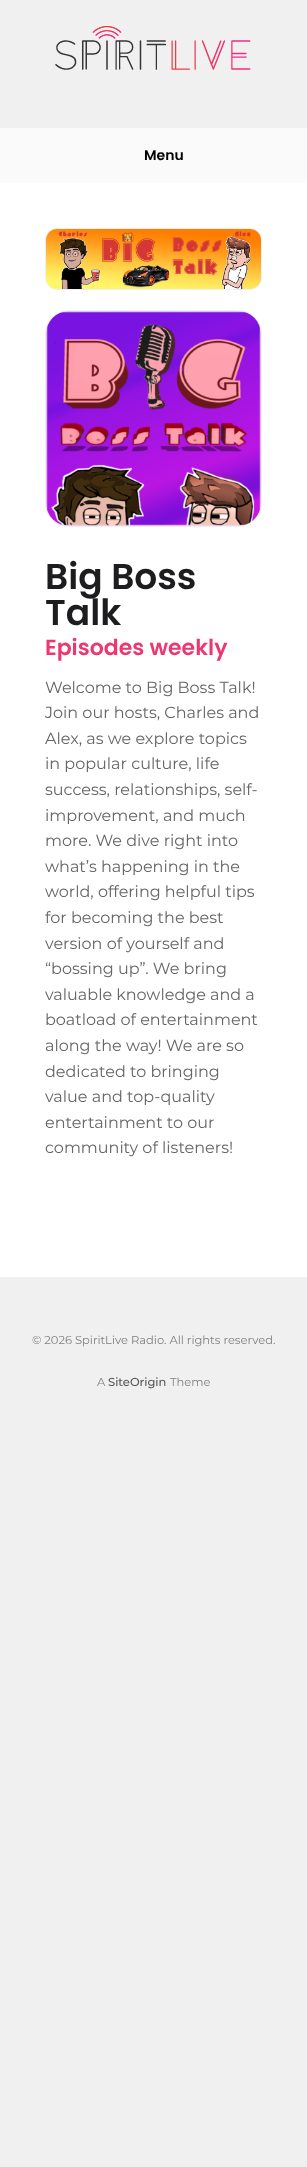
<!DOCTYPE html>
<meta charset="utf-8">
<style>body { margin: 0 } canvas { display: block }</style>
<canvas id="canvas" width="307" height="2167"></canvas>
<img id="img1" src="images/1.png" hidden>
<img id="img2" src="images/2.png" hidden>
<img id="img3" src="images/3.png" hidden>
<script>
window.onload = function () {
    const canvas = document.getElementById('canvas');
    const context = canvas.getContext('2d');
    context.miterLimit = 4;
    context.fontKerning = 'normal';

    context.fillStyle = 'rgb(240, 240, 240)';
    context.fillRect(0, 0, 307, 2167);
    context.drawImage(document.getElementById('img1'), 55, 26, 196, 44);
    context.fillStyle = 'rgb(250, 250, 250)';
    context.fillRect(0, 128, 307, 55);
    context.fillStyle = 'rgb(255, 255, 255)';
    context.fillRect(0, 183, 307, 1094);
    context.beginPath();
    context.roundRect(45.5, 228.5, 216, 61, 11.5);
    context.strokeStyle = 'rgb(240, 240, 240)';
    context.stroke();
    context.drawImage(document.getElementById('img2'), 46, 229, 215, 60);
    context.beginPath();
    context.roundRect(45.5, 310.5, 216, 216, 23.5);
    context.stroke();
    context.drawImage(document.getElementById('img3'), 46, 311, 215, 215);
    context.font = '600 14px Poppins';
    context.fillStyle = 'rgb(0, 0, 0)';
    context.fillText('Menu', 144, 160);
    context.font = '600 36px Poppins';
    context.fillStyle = 'rgb(29, 29, 31)';
    context.fillText('Big Boss', 45, 589);
    context.fillText('Talk', 45, 625);
    context.font = '600 22px Poppins';
    context.fillStyle = 'rgb(236, 55, 113)';
    context.fillText('Episodes weekly', 45, 655);
    context.font = '16px Montserrat';
    context.fillStyle = 'rgb(102, 102, 102)';
    context.fillText('Welcome to Big Boss Talk!', 45, 693);
    context.fillText('Join our hosts, Charles and', 45, 718);
    context.fillText('Alex, as we explore topics', 45, 744);
    context.fillText('in popular culture, life', 45, 769);
    context.fillText('success, relationships, self-', 45, 795);
    context.fillText('improvement, and much', 45, 821);
    context.fillText('more. We dive right into', 45, 846);
    context.fillText('what’s happening in the', 45, 872);
    context.fillText('world, offering helpful tips', 45, 897);
    context.fillText('for becoming the best', 45, 923);
    context.fillText('version of yourself and', 45, 949);
    context.fillText('“bossing up”. We bring', 45, 974);
    context.fillText('valuable knowledge and a', 45, 1000);
    context.fillText('boatload of entertainment', 45, 1025);
    context.fillText('along the way! We are so', 45, 1051);
    context.fillText('dedicated to bringing', 45, 1077);
    context.fillText('value and top-quality', 45, 1102);
    context.fillText('entertainment to our', 45, 1128);
    context.fillText('community of listeners!', 45, 1153);
    context.font = '11.5px Montserrat';
    context.fillStyle = 'rgb(128, 128, 128)';
    context.fillText('© 2026 SpiritLive Radio. All rights reserved.', 32, 1344);
    context.fillText('A', 97, 1386);
    context.font = '500 11.5px Montserrat';
    context.fillStyle = 'rgb(85, 85, 85)';
    context.fillText('SiteOrigin', 108, 1386);
    context.font = '11.5px Montserrat';
    context.fillStyle = 'rgb(128, 128, 128)';
    context.fillText('Theme', 170, 1386);
};
</script>
